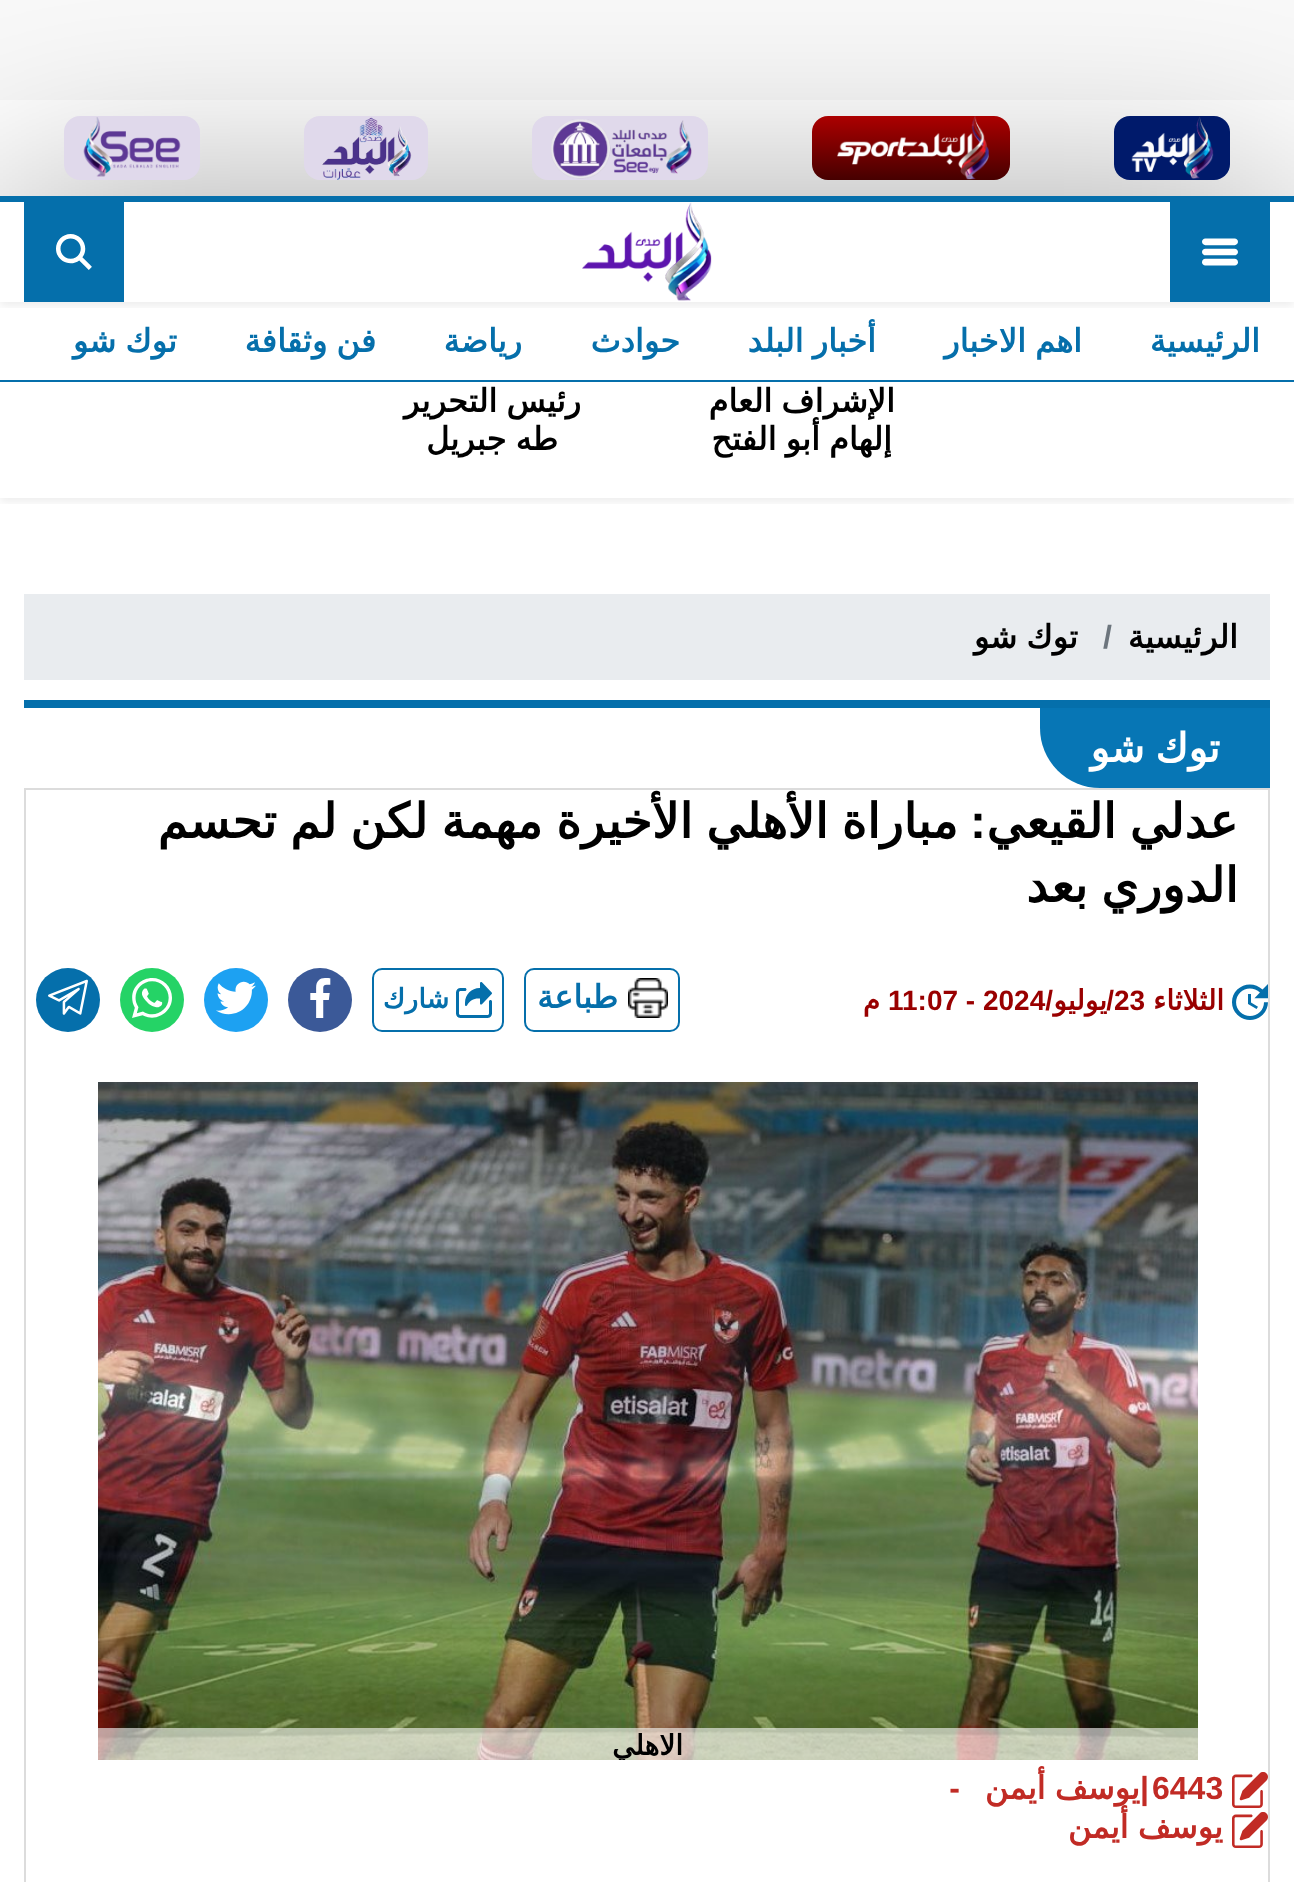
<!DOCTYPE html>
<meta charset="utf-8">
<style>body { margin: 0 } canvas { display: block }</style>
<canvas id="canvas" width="1294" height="1882"></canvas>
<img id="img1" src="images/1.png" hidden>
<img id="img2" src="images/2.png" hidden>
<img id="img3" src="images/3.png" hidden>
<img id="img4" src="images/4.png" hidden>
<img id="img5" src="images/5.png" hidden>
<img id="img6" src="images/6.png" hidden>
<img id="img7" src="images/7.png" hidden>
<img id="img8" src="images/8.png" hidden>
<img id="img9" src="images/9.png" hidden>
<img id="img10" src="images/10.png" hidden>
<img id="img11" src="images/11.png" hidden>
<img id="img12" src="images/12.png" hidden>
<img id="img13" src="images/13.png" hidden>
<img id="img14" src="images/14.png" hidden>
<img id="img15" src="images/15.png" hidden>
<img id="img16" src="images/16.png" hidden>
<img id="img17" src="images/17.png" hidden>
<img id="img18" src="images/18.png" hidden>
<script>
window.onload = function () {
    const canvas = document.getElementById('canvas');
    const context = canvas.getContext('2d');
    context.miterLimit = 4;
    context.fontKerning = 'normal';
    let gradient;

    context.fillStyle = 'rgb(249, 249, 249)';
    context.fillRect(0, 0, 1294, 1882);
    context.fillStyle = 'rgb(255, 255, 255)';
    context.fillRect(0, 100, 1294, 96);
    context.fillStyle = 'rgba(0, 0, 0, 0.35)';
    context.filter = 'blur(103px)';
    context.beginPath();
    context.rect(0, 196, 1294, 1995);
    context.fill();
    context.filter = 'none';
    context.fillStyle = 'rgb(0, 26, 107)';
    context.beginPath();
    context.roundRect(1114, 116, 116, 64, 16);
    context.fill();
    context.drawImage(document.getElementById('img1'), 1131, 116, 83, 63);
    gradient = context.createLinearGradient(911, 116, 911, 180);
    gradient.addColorStop(0, 'rgb(172, 0, 0)');
    gradient.addColorStop(1, 'rgb(70, 0, 0)');
    context.fillStyle = gradient;
    context.beginPath();
    context.roundRect(812, 116, 198, 64, 16);
    context.fill();
    context.drawImage(document.getElementById('img2'), 837, 116, 152, 64);
    context.fillStyle = 'rgb(224, 217, 235)';
    context.beginPath();
    context.roundRect(532, 116, 176, 64, 16);
    context.fill();
    context.drawImage(document.getElementById('img3'), 551, 119, 141, 60);
    context.beginPath();
    context.roundRect(304, 116, 124, 64, 16);
    context.fill();
    context.drawImage(document.getElementById('img4'), 322, 117, 90, 63);
    context.beginPath();
    context.roundRect(64, 116, 136, 64, 16);
    context.fill();
    context.drawImage(document.getElementById('img5'), 83, 117, 98, 60);
    context.fillStyle = 'rgb(255, 255, 255)';
    context.fillRect(0, 202, 1294, 1680);
    context.save();
    context.beginPath();
    context.rect(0, 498, 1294, 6);
    context.clip();
    context.fillStyle = 'rgba(0, 0, 0, 0.07)';
    context.filter = 'blur(4px)';
    context.beginPath();
    context.rect(0, 200, 1294, 302);
    context.fill();
    context.filter = 'none';
    context.restore();
    context.save();
    context.beginPath();
    context.rect(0, 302, 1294, 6);
    context.clip();
    context.fillStyle = 'rgba(0, 0, 0, 0.07)';
    context.filter = 'blur(4px)';
    context.beginPath();
    context.rect(0, 200, 1294, 106);
    context.fill();
    context.filter = 'none';
    context.restore();
    context.fillStyle = 'rgb(5, 111, 171)';
    context.fillRect(0, 196, 1294, 6);
    context.fillRect(1170, 202, 100, 100);
    context.drawImage(document.getElementById('img6'), 1202, 238, 36, 28);
    context.drawImage(document.getElementById('img7'), 582, 202, 130, 99);
    context.fillRect(24, 202, 100, 100);
    context.drawImage(document.getElementById('img8'), 56, 234, 36, 36);
    context.fillRect(0, 380, 1294, 2);
    context.fillStyle = 'rgb(233, 236, 239)';
    context.fillRect(24, 594, 1246, 86);
    context.fillStyle = 'rgb(5, 111, 171)';
    context.fillRect(24, 700, 1246, 8);
    context.fillStyle = 'rgb(7, 118, 181)';
    context.beginPath();
    context.roundRect(1040, 708, 230, 80, [0, 0, 0, 60]);
    context.fill();
    context.strokeStyle = 'rgb(220, 220, 220)';
    context.lineWidth = 2;
    context.strokeRect(25, 789, 1244, 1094);
    context.drawImage(document.getElementById('img9'), 1232, 984, 36, 36);
    context.beginPath();
    context.roundRect(525, 969, 154, 62, 9);
    context.strokeStyle = 'rgb(5, 111, 171)';
    context.stroke();
    context.drawImage(document.getElementById('img10'), 628, 978, 40, 40);
    context.beginPath();
    context.roundRect(373, 969, 130, 62, 9);
    context.stroke();
    context.drawImage(document.getElementById('img11'), 456, 982, 36, 36);
    context.fillStyle = 'rgb(59, 89, 152)';
    context.beginPath();
    context.arc(320, 1000, 32, 0, 2 * Math.PI);
    context.fill();
    context.drawImage(document.getElementById('img12'), 310, 978, 21, 40);
    context.fillStyle = 'rgb(29, 161, 242)';
    context.beginPath();
    context.arc(236, 1000, 32, 0, 2 * Math.PI);
    context.fill();
    context.drawImage(document.getElementById('img13'), 216, 981, 40, 34);
    context.fillStyle = 'rgb(37, 211, 102)';
    context.beginPath();
    context.arc(152, 1000, 32, 0, 2 * Math.PI);
    context.fill();
    context.drawImage(document.getElementById('img14'), 132, 978, 40, 40);
    context.fillStyle = 'rgb(5, 111, 171)';
    context.beginPath();
    context.arc(68, 1000, 32, 0, 2 * Math.PI);
    context.fill();
    context.drawImage(document.getElementById('img15'), 48, 979, 40, 36);
    context.drawImage(document.getElementById('img16'), 98, 1082, 1100, 678);
    context.fillStyle = 'rgba(255, 255, 255, 0.6)';
    context.fillRect(98, 1728, 1100, 32);
    context.drawImage(document.getElementById('img17'), 1232, 1772, 36, 36);
    context.drawImage(document.getElementById('img18'), 1232, 1812, 36, 36);
    context.direction = 'rtl';
    context.font = 'bold 32px DejaVu Sans';
    context.fillStyle = 'rgb(5, 111, 171)';
    context.fillText('الرئيسية', 1260, 352);
    context.wordSpacing = '-1px';
    context.fillText('اهم الاخبار', 1082, 352);
    context.fillText('أخبار البلد', 876, 352);
    context.wordSpacing = '0px';
    context.fillText('حوادث', 680, 352);
    context.fillText('رياضة', 522, 352);
    context.wordSpacing = '-1px';
    context.fillText('فن وثقافة', 376, 352);
    context.fillText('توك شو', 177, 352);
    context.fillStyle = 'rgb(0, 0, 0)';
    context.fillText('الإشراف العام', 895, 412);
    context.fillText('إلهام أبو الفتح', 892, 450);
    context.fillText('رئيس التحرير', 581, 412);
    context.fillText('طه جبريل', 558, 450);
    context.wordSpacing = '0px';
    context.fillText('الرئيسية', 1238, 648);
    context.direction = 'ltr';
    context.font = 'bold 32px Liberation Sans';
    context.fillStyle = 'rgb(108, 117, 125)';
    context.fillText('/', 1103, 648);
    context.wordSpacing = '-1px';
    context.direction = 'rtl';
    context.font = 'bold 32px DejaVu Sans';
    context.fillStyle = 'rgb(0, 0, 0)';
    context.fillText('توك شو', 1078, 648);
    context.wordSpacing = '-2px';
    context.font = 'bold 40px DejaVu Sans';
    context.fillStyle = 'rgb(255, 255, 255)';
    context.fillText('توك شو', 1220, 762);
    context.wordSpacing = '-1.75px';
    context.font = 'bold 48px DejaVu Sans';
    context.fillStyle = 'rgb(0, 0, 0)';
    context.fillText('عدلي القيعي', 1238, 838);
    context.wordSpacing = '0px';
    context.font = 'bold 48px Liberation Sans';
    context.fillText(':', 986, 838);
    context.wordSpacing = '-1.75px';
    context.font = 'bold 48px DejaVu Sans';
    context.fillText('مباراة الأهلي الأخيرة مهمة لكن لم تحسم', 958, 838);
    context.wordSpacing = '-2px';
    context.fillText('الدوري بعد', 1238, 902);
    context.wordSpacing = '0px';
    context.font = 'bold 28px DejaVu Sans';
    context.fillStyle = 'rgb(153, 0, 0)';
    context.fillText('الثلاثاء', 1224, 1010);
    context.direction = 'ltr';
    context.font = 'bold 28px Liberation Sans';
    context.fillText('23', 1114, 1010);
    context.direction = 'rtl';
    context.fillText('/', 1114, 1010);
    context.fillText('/', 1053, 1010);
    context.font = 'bold 28px DejaVu Sans';
    context.fillText('يوليو', 1107, 1010);
    context.direction = 'ltr';
    context.font = 'bold 28px Liberation Sans';
    context.fillText('11:07 - 2024', 888, 1010);
    context.direction = 'rtl';
    context.font = 'bold 28px DejaVu Sans';
    context.fillText('م', 880, 1010);
    context.font = 'bold 32px DejaVu Sans';
    context.fillStyle = 'rgb(5, 111, 171)';
    context.fillText('طباعة', 618, 1008);
    context.font = 'bold 27px DejaVu Sans';
    context.fillText('شارك', 449, 1008);
    context.save();
    context.beginPath();
    context.rect(98, 1082, 1100, 678);
    context.clip();
    context.font = 'bold 28px DejaVu Sans';
    context.fillStyle = 'rgb(0, 0, 0)';
    context.fillText('الاهلي', 683, 1755);
    context.restore();
    context.direction = 'ltr';
    context.font = 'bold 32px Liberation Sans';
    context.fillStyle = 'rgb(193, 43, 37)';
    context.fillText('6443', 1152, 1799);
    context.direction = 'rtl';
    context.fillText('|', 1149, 1799);
    context.wordSpacing = '-1px';
    context.font = 'bold 32px DejaVu Sans';
    context.fillText('يوسف أيمن', 1140, 1799);
    context.wordSpacing = '0px';
    context.font = 'bold 32px Liberation Sans';
    context.fillText('-', 960, 1799);
    context.wordSpacing = '-1px';
    context.font = 'bold 32px DejaVu Sans';
    context.fillText('يوسف أيمن', 1223, 1838);
};
</script>
